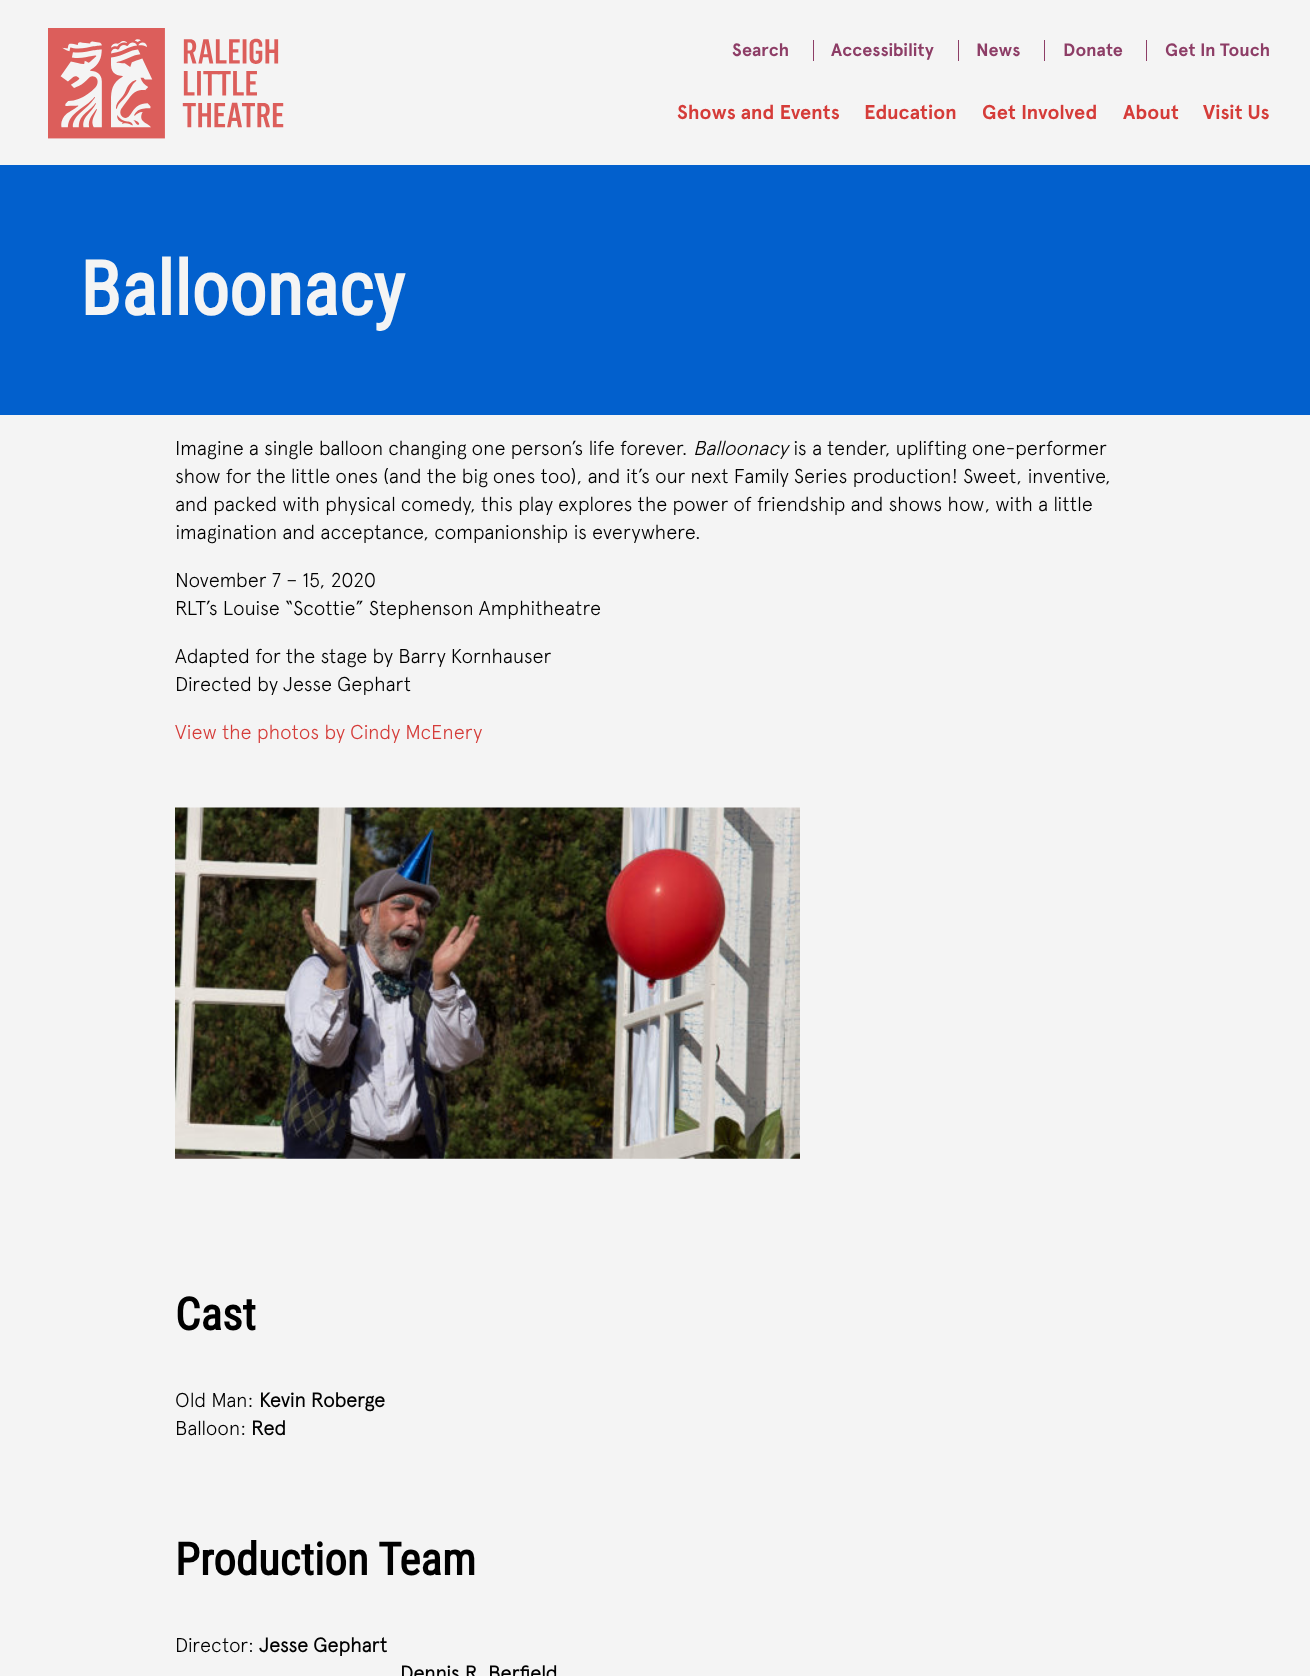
<!DOCTYPE html>
<meta charset="utf-8">
<style>body { margin: 0 } canvas { display: block }</style>
<canvas id="canvas" width="1310" height="1676"></canvas>
<img id="img1" src="images/1.png" hidden>
<img id="img2" src="images/2.png" hidden>
<script>
window.onload = function () {
    const canvas = document.getElementById('canvas');
    const context = canvas.getContext('2d');
    context.miterLimit = 4;
    context.fontKerning = 'normal';

    context.fillStyle = 'rgb(244, 244, 244)';
    context.fillRect(0, 0, 1310, 1676);
    context.drawImage(document.getElementById('img1'), 48, 28, 236, 111);
    context.fillStyle = 'rgb(141, 61, 102)';
    context.fillRect(813, 40, 1, 21);
    context.fillRect(958, 40, 1, 21);
    context.fillRect(1044, 40, 1, 21);
    context.fillRect(1146, 40, 1, 21);
    context.fillStyle = 'rgb(2, 96, 205)';
    context.fillRect(0, 165, 1310, 250);
    context.drawImage(document.getElementById('img2'), 175, 807, 625, 352);
    context.font = 'bold 18px "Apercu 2"';
    context.fillStyle = 'rgb(141, 61, 102)';
    context.fillText('Search', 732, 56);
    context.fillText('Accessibility', 831, 56);
    context.fillText('News', 976, 56);
    context.fillText('Donate', 1063, 56);
    context.fillText('Get In Touch', 1165, 56);
    context.font = 'bold 20px "Apercu 2"';
    context.fillStyle = 'rgb(213, 60, 57)';
    context.fillText('Shows and Events', 677, 119);
    context.fillText('Education', 864, 119);
    context.fillText('Get Involved', 982, 119);
    context.fillText('About', 1123, 119);
    context.fillText('Visit Us', 1203, 119);
    context.font = 'bold 75px Roboto Condensed';
    context.fillStyle = 'rgb(244, 244, 244)';
    context.fillText('Balloonacy', 80, 315);
    context.font = '300 20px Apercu';
    context.fillStyle = 'rgb(0, 0, 0)';
    context.fillText('Imagine a single balloon changing one person’s life forever.', 175, 455);
    context.font = 'italic 300 20px Apercu';
    context.fillText('Balloonacy', 693, 455);
    context.font = '300 20px Apercu';
    context.fillText('is a tender, uplifting one-performer', 793, 455);
    context.fillText('show for the little ones (and the big ones too), and it’s our next Family Series production! Sweet, inventive,', 175, 483);
    context.fillText('and packed with physical comedy, this play explores the power of friendship and shows how, with a little', 175, 511);
    context.fillText('imagination and acceptance, companionship is everywhere.', 175, 539);
    context.fillText('November 7 – 15, 2020', 175, 587);
    context.fillText('RLT’s Louise “Scottie” Stephenson Amphitheatre', 175, 615);
    context.fillText('Adapted for the stage by Barry Kornhauser', 175, 663);
    context.fillText('Directed by Jesse Gephart', 175, 691);
    context.fillStyle = 'rgb(213, 60, 57)';
    context.fillText('View the photos by Cindy McEnery', 175, 739);
    context.font = 'bold 45px Roboto Condensed';
    context.fillStyle = 'rgb(0, 0, 0)';
    context.fillText('Cast', 175, 1330);
    context.font = '300 20px Apercu';
    context.fillText('Old Man:', 175, 1407);
    context.font = 'bold 20px Apercu';
    context.fillText('Kevin Roberge', 259, 1407);
    context.font = '300 20px Apercu';
    context.fillText('Balloon:', 175, 1435);
    context.font = 'bold 20px Apercu';
    context.fillText('Red', 251, 1435);
    context.font = 'bold 45px Roboto Condensed';
    context.fillText('Production Team', 175, 1575);
    context.font = '300 20px Apercu';
    context.fillText('Director:', 175, 1652);
    context.font = 'bold 20px Apercu';
    context.fillText('Jesse Gephart', 259, 1652);
    context.fillText('Dennis R. Berfield', 400, 1680);
};
</script>
